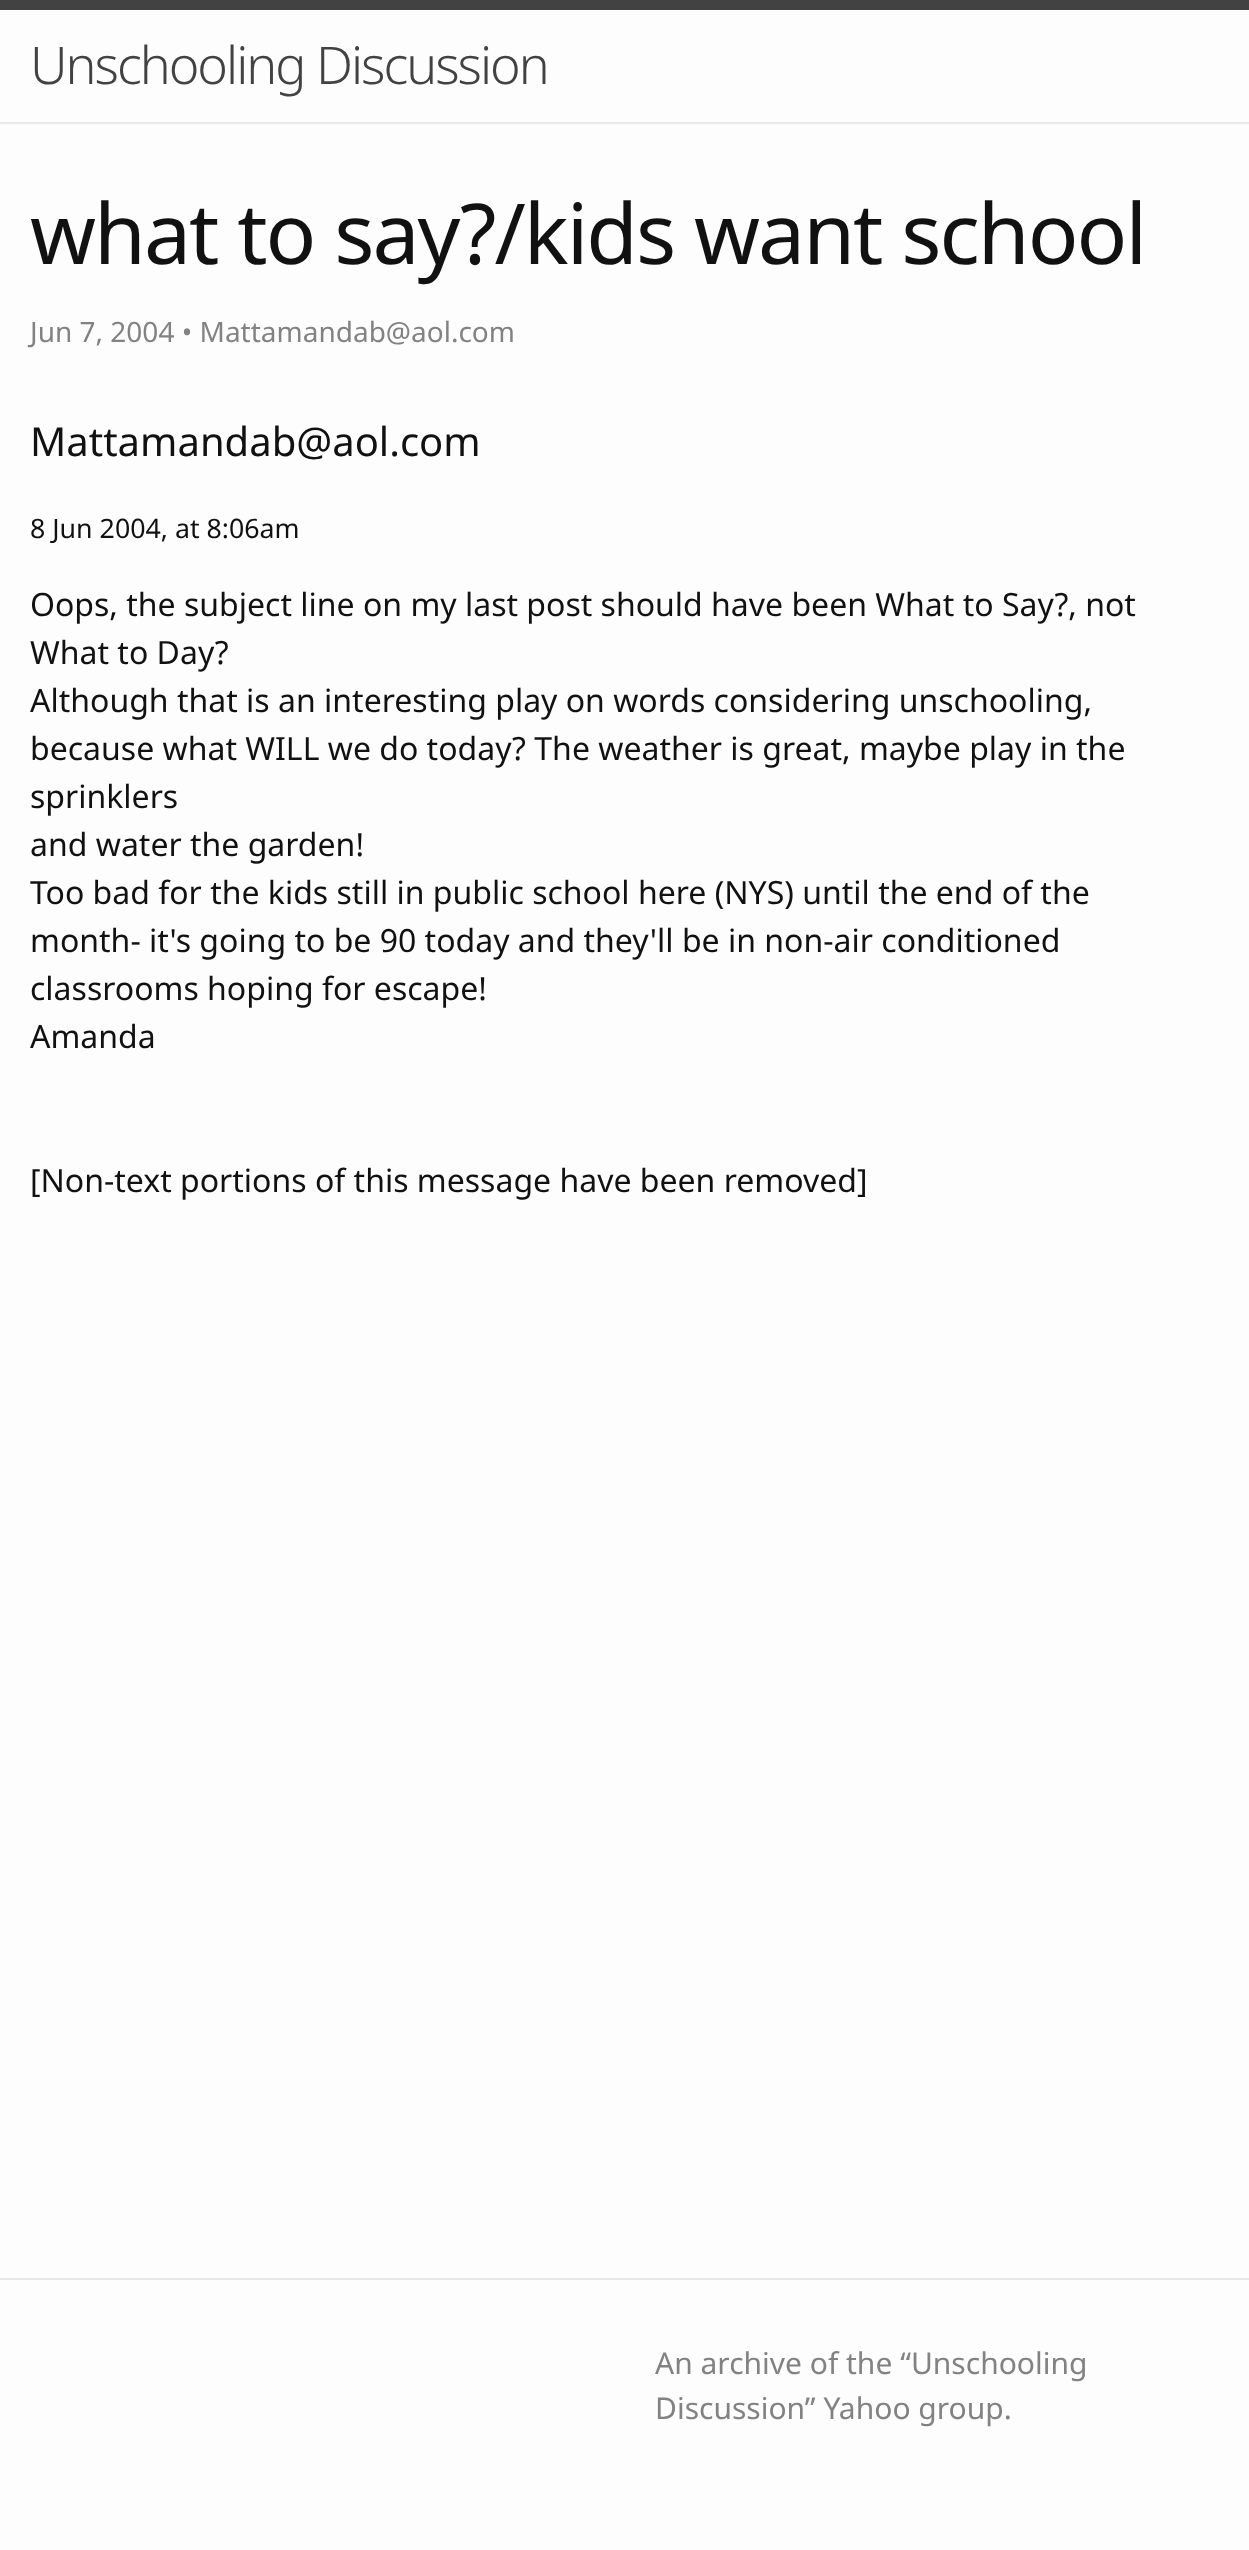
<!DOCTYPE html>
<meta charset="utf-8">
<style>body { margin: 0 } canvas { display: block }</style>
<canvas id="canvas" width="1249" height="2550"></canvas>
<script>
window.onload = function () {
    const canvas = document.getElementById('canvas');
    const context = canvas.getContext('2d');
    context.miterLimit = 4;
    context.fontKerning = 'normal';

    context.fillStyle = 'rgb(253, 253, 253)';
    context.fillRect(0, 0, 1249, 2550);
    context.fillStyle = 'rgb(66, 66, 66)';
    context.fillRect(0, 0, 1249, 10);
    context.fillStyle = 'rgb(232, 232, 232)';
    context.fillRect(0, 122, 1249, 2);
    context.fillRect(0, 2278, 1249, 2);
    context.letterSpacing = '-2px';
    context.font = '300 52px Noto Sans';
    context.fillStyle = 'rgb(66, 66, 66)';
    context.fillText('Unschooling Discussion', 30, 84);
    context.font = '84px Noto Sans';
    context.fillStyle = 'rgb(17, 17, 17)';
    context.fillText('what to say?/kids want school', 30, 264);
    context.letterSpacing = '0px';
    context.font = '28px Noto Sans';
    context.fillStyle = 'rgb(130, 130, 130)';
    context.fillText('Jun 7, 2004 • Mattamandab@aol.com', 30, 342);
    context.font = '40px Noto Sans';
    context.fillStyle = 'rgb(17, 17, 17)';
    context.fillText('Mattamandab@aol.com', 30, 456);
    context.font = '26.75px Noto Sans';
    context.fillText('8 Jun 2004, at 8:06am', 30, 538);
    context.font = '32px Noto Sans';
    context.fillText('Oops, the subject line on my last post should have been What to Say?, not', 30, 616);
    context.fillText('What to Day?', 30, 664);
    context.fillText('Although that is an interesting play on words considering unschooling,', 30, 712);
    context.fillText('because what WILL we do today? The weather is great, maybe play in the', 30, 760);
    context.fillText('sprinklers', 30, 808);
    context.fillText('and water the garden!', 30, 856);
    context.fillText('Too bad for the kids still in public school here (NYS) until the end of the', 30, 904);
    context.fillText('month- it\'s going to be 90 today and they\'ll be in non-air conditioned', 30, 952);
    context.fillText('classrooms hoping for escape!', 30, 1000);
    context.fillText('Amanda', 30, 1048);
    context.fillText('[Non-text portions of this message have been removed]', 30, 1192);
    context.font = '30px Noto Sans';
    context.fillStyle = 'rgb(130, 130, 130)';
    context.fillText('An archive of the “Unschooling', 655, 2374);
    context.fillText('Discussion” Yahoo group.', 655, 2419);
};
</script>
